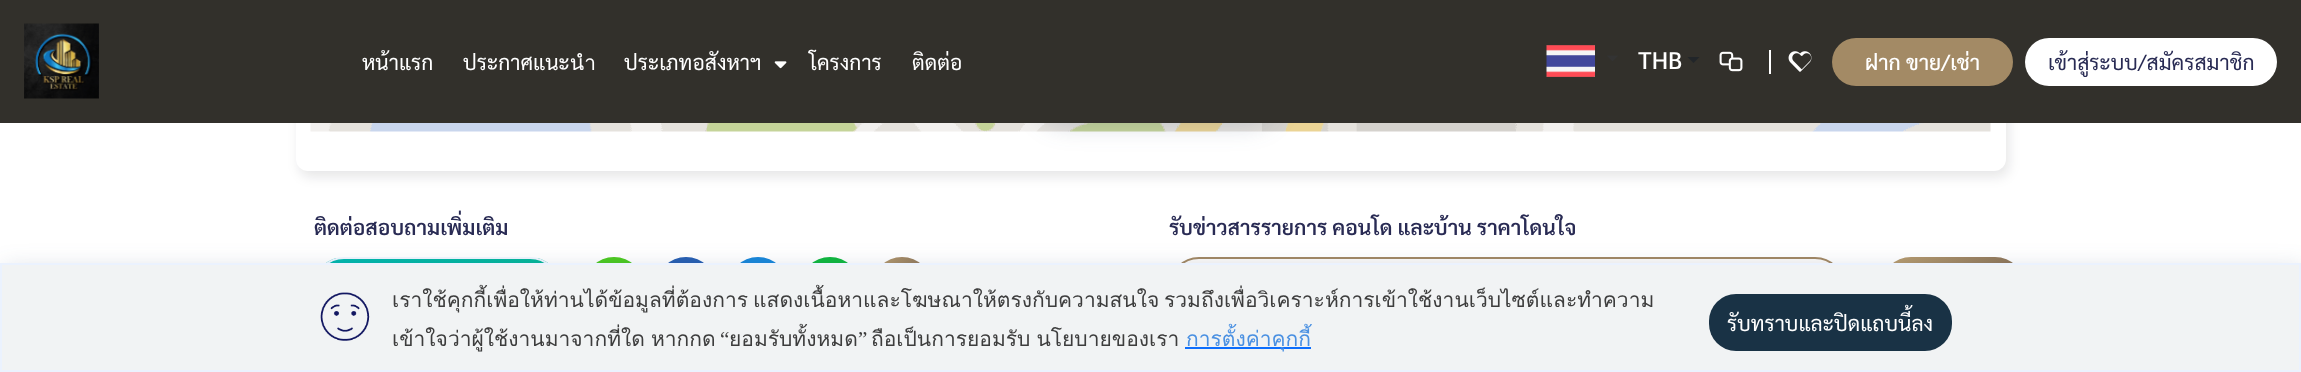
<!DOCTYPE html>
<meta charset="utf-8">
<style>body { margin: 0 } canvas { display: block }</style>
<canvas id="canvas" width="2301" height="372"></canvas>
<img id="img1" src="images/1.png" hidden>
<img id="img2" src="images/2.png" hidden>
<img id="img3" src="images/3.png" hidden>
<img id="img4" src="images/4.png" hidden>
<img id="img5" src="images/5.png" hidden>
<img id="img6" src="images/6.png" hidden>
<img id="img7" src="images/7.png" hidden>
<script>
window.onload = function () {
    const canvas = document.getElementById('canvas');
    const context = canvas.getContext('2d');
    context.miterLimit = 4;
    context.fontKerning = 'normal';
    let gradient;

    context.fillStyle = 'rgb(255, 255, 255)';
    context.fillRect(0, 0, 2301, 372);
    context.fillStyle = 'rgba(10, 10, 16, 0.1)';
    context.filter = 'blur(6px)';
    context.beginPath();
    context.roundRect(299, -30, 1710, 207, 12);
    context.fill();
    context.filter = 'none';
    context.fillStyle = 'rgb(255, 255, 255)';
    context.beginPath();
    context.roundRect(296, -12, 1710, 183, 12);
    context.fill();
    context.drawImage(document.getElementById('img1'), 310, 123, 1681, 9);
    context.fillStyle = 'rgba(56, 75, 108, 0.2)';
    context.filter = 'blur(12px)';
    context.beginPath();
    context.roundRect(1037, 66, 240, 60, 30);
    context.fill();
    context.filter = 'none';
    context.fillStyle = 'rgb(50, 48, 43)';
    context.fillRect(0, 0, 2301, 123);
    context.drawImage(document.getElementById('img2'), 24, 23, 75, 76);
    context.drawImage(document.getElementById('img3'), 774, 61, 13, 8);
    context.drawImage(document.getElementById('img4'), 1546, 45, 49, 32);
    context.fillStyle = 'rgb(51, 51, 51)';
    context.beginPath();
    context.moveTo(1606.5, 55.5);
    context.lineTo(1618.5, 55.5);
    context.lineTo(1612.5, 61.5);
    context.closePath();
    context.fill();
    context.fillStyle = 'rgb(33, 37, 41)';
    context.beginPath();
    context.moveTo(1687.5, 57);
    context.lineTo(1699.5, 57);
    context.lineTo(1693.5, 63);
    context.closePath();
    context.fill();
    context.fillStyle = 'rgb(255, 255, 255)';
    context.fillRect(1769, 50, 2, 24);
    context.drawImage(document.getElementById('img5'), 1719, 51, 24, 21);
    context.drawImage(document.getElementById('img6'), 1788, 51, 24, 21);
    context.fillStyle = 'rgb(163, 138, 101)';
    context.beginPath();
    context.roundRect(1832, 38, 181, 48, 24);
    context.fill();
    context.fillStyle = 'rgb(255, 255, 255)';
    context.beginPath();
    context.roundRect(2025, 38, 252, 48, 24);
    context.fill();
    context.save();
    context.beginPath();
    context.roundRect(314, 257, 246, 60, 30);
    context.clip();
    gradient = context.createLinearGradient(318, 324, 675, 210);
    gradient.addColorStop(0.06, 'rgb(0, 184, 176)');
    gradient.addColorStop(1, 'rgb(7, 181, 139)');
    gradient.addColorStop(1, 'rgb(22, 160, 134)');
    context.fillStyle = gradient;
    context.fillRect(326, 258, 222, 5);
    context.restore();
    context.beginPath();
    context.roundRect(315, 258, 244, 58, 29);
    context.strokeStyle = 'rgb(240, 247, 255)';
    context.lineWidth = 2;
    context.stroke();
    context.fillStyle = 'rgb(76, 202, 32)';
    context.beginPath();
    context.arc(614, 287, 30, 0, 2 * Math.PI);
    context.fill();
    context.fillStyle = 'rgb(39, 95, 178)';
    context.beginPath();
    context.arc(686, 287, 30, 0, 2 * Math.PI);
    context.fill();
    context.fillStyle = 'rgb(24, 135, 218)';
    context.beginPath();
    context.arc(758, 287, 30, 0, 2 * Math.PI);
    context.fill();
    context.fillStyle = 'rgb(15, 184, 62)';
    context.beginPath();
    context.arc(830, 287, 30, 0, 2 * Math.PI);
    context.fill();
    gradient = context.createLinearGradient(855, 286, 942, 287);
    gradient.addColorStop(0, 'rgb(201, 172, 120)');
    gradient.addColorStop(1, 'rgb(130, 107, 83)');
    context.fillStyle = gradient;
    context.beginPath();
    context.arc(902, 287, 30, 0, 2 * Math.PI);
    context.fill();
    context.fillStyle = 'rgb(251, 250, 249)';
    context.beginPath();
    context.roundRect(1170, 258, 674, 58, 29);
    context.fill();
    context.strokeStyle = 'rgb(162, 136, 100)';
    context.stroke();
    gradient = context.createLinearGradient(1840, 286, 2049, 287);
    gradient.addColorStop(0, 'rgb(201, 172, 120)');
    gradient.addColorStop(1, 'rgb(130, 107, 83)');
    context.fillStyle = gradient;
    context.beginPath();
    context.roundRect(1881, 257, 144, 60, 30);
    context.fill();
    context.fillStyle = 'rgba(56, 75, 108, 0.2)';
    context.filter = 'blur(12px)';
    context.beginPath();
    context.rect(3, 269, 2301, 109);
    context.fill();
    context.filter = 'none';
    context.fillStyle = 'rgb(241, 243, 244)';
    context.beginPath();
    context.rect(1, 264, 2299, 107);
    context.fill();
    context.strokeStyle = 'rgb(235, 242, 254)';
    context.stroke();
    context.drawImage(document.getElementById('img7'), 320, 292, 50, 49);
    context.fillStyle = 'rgb(13, 110, 253)';
    context.fillRect(1185, 347, 126, 2);
    context.fillStyle = 'rgb(25, 50, 69)';
    context.beginPath();
    context.roundRect(1709, 294, 243, 57, 27);
    context.fill();
    context.font = '21px Sarabun';
    context.fillStyle = 'rgb(255, 255, 255)';
    context.fillText('หน้าแรก', 362, 70);
    context.fillText('ประกาศแนะนำ', 463, 70);
    context.fillText('ประเภทอสังหาฯ', 624, 70);
    context.fillText('โครงการ', 809, 70);
    context.fillText('ติดต่อ', 912, 70);
    context.font = '500 24px Sarabun';
    context.fillText('THB', 1638, 69);
    context.font = '500 21px Sarabun';
    context.fillText('ฝาก ขาย/เช่า', 1865, 70);
    context.font = '21px Sarabun';
    context.fillStyle = 'rgb(41, 43, 84)';
    context.fillText('เข้าสู่ระบบ/สมัครสมาชิก', 2048, 70);
    context.font = '600 21px Sarabun';
    context.fillText('ติดต่อสอบถามเพิ่มเติม', 314, 235);
    context.fillText('รับข่าวสารรายการ คอนโด และบ้าน ราคาโดนใจ', 1169, 235);
    context.wordSpacing = '-2px';
    context.font = '21px Loma';
    context.fillStyle = 'rgb(61, 61, 61)';
    context.fillText('เราใช้คุกกี้เพื่อให้ท่านได้ข้อมูลที่ต้องการ แสดงเนื้อหาและโฆษณาให้ตรงกับความสนใจ', 392, 307);
    context.wordSpacing = '0px';
    context.fillText('รวมถึงเพื่อวิเคราะห์การเข้าใช้งานเว็บไซต์และทำความ', 1164, 307);
    context.wordSpacing = '-1px';
    context.fillText('เข้าใจว่าผู้ใช้งานมาจากที่ใด หากกด', 392, 346);
    context.wordSpacing = '0px';
    context.font = '21px Liberation Serif';
    context.fillText('“', 720, 346);
    context.font = '21px Loma';
    context.fillText('ยอมรับทั้งหมด', 729, 346);
    context.fillStyle = 'rgb(74, 144, 226)';
    context.fillText('การตั้งค่าคุกกี้', 1186, 346);
    context.font = '21px Liberation Serif';
    context.fillStyle = 'rgb(61, 61, 61)';
    context.fillText('”', 858, 346);
    context.wordSpacing = '-1px';
    context.font = '21px Loma';
    context.fillText('ถือเป็นการยอมรับ นโยบายของเรา', 871, 346);
    context.wordSpacing = '0px';
    context.font = '21px Sarabun';
    context.fillStyle = 'rgb(255, 255, 255)';
    context.fillText('รับทราบและปิดแถบนี้ลง', 1727, 331);
};
</script>
